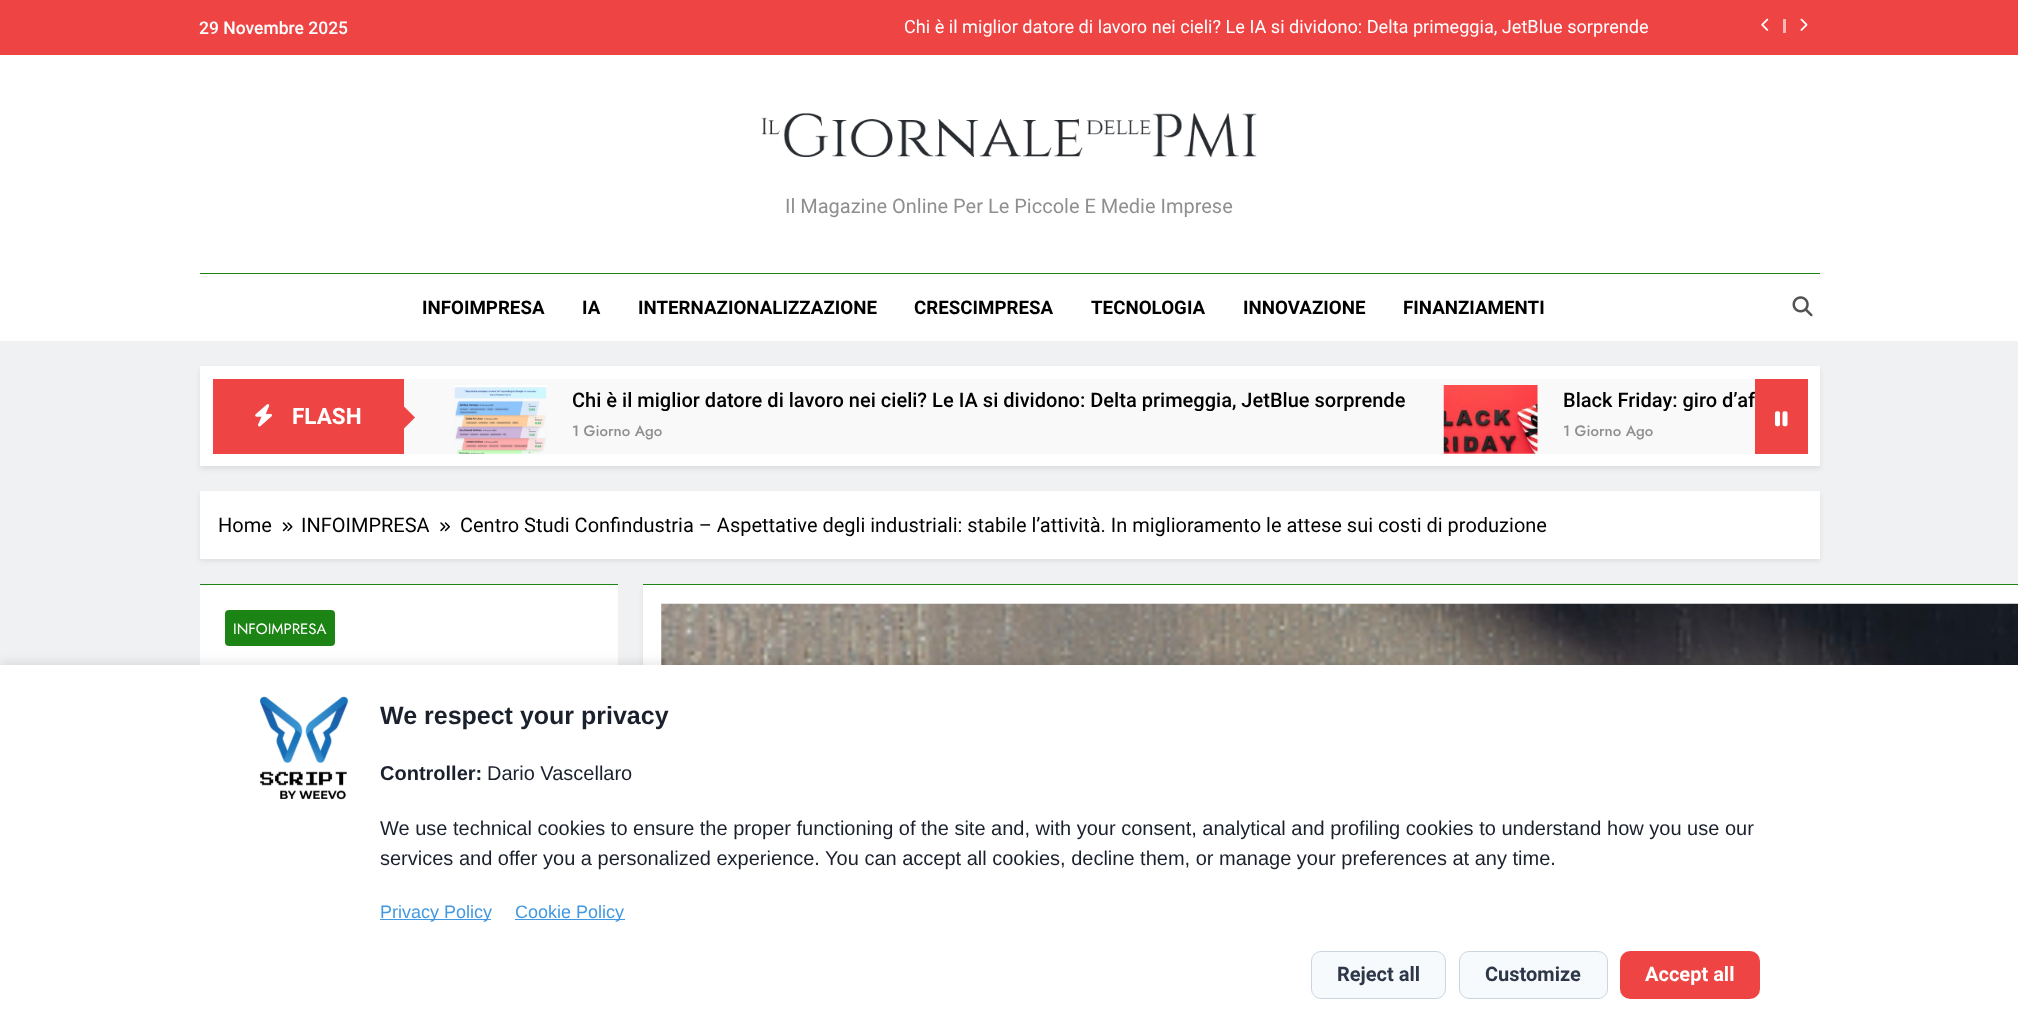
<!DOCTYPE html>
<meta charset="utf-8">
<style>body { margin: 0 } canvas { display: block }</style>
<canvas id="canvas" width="2018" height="1029"></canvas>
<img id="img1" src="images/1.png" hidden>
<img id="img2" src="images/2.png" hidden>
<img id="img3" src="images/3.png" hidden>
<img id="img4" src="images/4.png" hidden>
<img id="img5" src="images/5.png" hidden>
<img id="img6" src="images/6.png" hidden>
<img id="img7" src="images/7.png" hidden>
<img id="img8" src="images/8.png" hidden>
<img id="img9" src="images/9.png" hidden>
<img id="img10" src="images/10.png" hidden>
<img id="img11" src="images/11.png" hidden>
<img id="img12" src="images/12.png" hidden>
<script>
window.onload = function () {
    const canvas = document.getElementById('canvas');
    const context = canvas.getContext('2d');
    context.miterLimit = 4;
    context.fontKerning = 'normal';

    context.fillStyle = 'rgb(240, 241, 242)';
    context.fillRect(0, 0, 2018, 1029);
    context.fillStyle = 'rgb(239, 68, 68)';
    context.fillRect(0, 0, 2018, 55);
    context.drawImage(document.getElementById('img1'), 1761, 18, 8, 13);
    context.fillStyle = 'rgb(249, 180, 180)';
    context.fillRect(1783, 19, 3, 14);
    context.drawImage(document.getElementById('img2'), 1800, 18, 8, 13);
    context.fillStyle = 'rgb(255, 255, 255)';
    context.fillRect(0, 55, 2018, 286);
    context.drawImage(document.getElementById('img3'), 761, 113, 496, 44);
    context.fillStyle = 'rgb(27, 132, 21)';
    context.fillRect(200, 273, 1620, 1);
    context.drawImage(document.getElementById('img4'), 1792, 296, 21, 21);
    context.fillStyle = 'rgba(0, 0, 0, 0.08)';
    context.filter = 'blur(2.5px)';
    context.beginPath();
    context.rect(200, 369, 1620, 100);
    context.fill();
    context.filter = 'none';
    context.fillStyle = 'rgb(255, 255, 255)';
    context.fillRect(200, 366, 1620, 100);
    context.fillStyle = 'rgb(239, 68, 68)';
    context.fillRect(213, 379, 191, 75);
    context.drawImage(document.getElementById('img5'), 255, 404, 17, 23);
    context.fillStyle = 'rgb(249, 249, 249)';
    context.fillRect(404, 379, 1351, 75);
    context.fillStyle = 'rgb(239, 68, 68)';
    context.beginPath();
    context.moveTo(402.5, 430);
    context.lineTo(402.5, 405);
    context.lineTo(415, 417.5);
    context.closePath();
    context.fill();
    context.drawImage(document.getElementById('img6'), 454, 385, 93, 69);
    context.drawImage(document.getElementById('img7'), 1443, 385, 95, 69);
    context.fillRect(1755, 379, 53, 75);
    context.drawImage(document.getElementById('img8'), 1775, 411, 13, 16);
    context.fillStyle = 'rgba(0, 0, 0, 0.08)';
    context.filter = 'blur(2.5px)';
    context.beginPath();
    context.rect(200, 494, 1620, 67);
    context.fill();
    context.filter = 'none';
    context.fillStyle = 'rgb(255, 255, 255)';
    context.fillRect(200, 491, 1620, 68);
    context.drawImage(document.getElementById('img9'), 282, 522, 11, 10);
    context.drawImage(document.getElementById('img10'), 440, 522, 10, 10);
    context.fillRect(200, 585, 418, 80);
    context.fillStyle = 'rgb(27, 132, 21)';
    context.fillRect(200, 584, 418, 1);
    context.beginPath();
    context.roundRect(225, 610, 110, 36, 4);
    context.fill();
    context.fillStyle = 'rgba(0, 0, 0, 0.08)';
    context.filter = 'blur(2.5px)';
    context.beginPath();
    context.rect(643, 588, 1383, 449);
    context.fill();
    context.filter = 'none';
    context.fillStyle = 'rgb(255, 255, 255)';
    context.fillRect(643, 585, 1375, 80);
    context.fillStyle = 'rgb(27, 132, 21)';
    context.fillRect(643, 584, 1375, 1);
    context.drawImage(document.getElementById('img11'), 661, 603, 1357, 62);
    context.fillStyle = 'rgba(0, 0, 0, 0.1)';
    context.filter = 'blur(6px)';
    context.beginPath();
    context.rect(0, 663, 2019, 365);
    context.fill();
    context.filter = 'none';
    context.fillStyle = 'rgb(255, 255, 255)';
    context.fillRect(0, 665, 2018, 364);
    context.drawImage(document.getElementById('img12'), 260, 696, 89, 104);
    context.fillStyle = 'rgb(66, 153, 225)';
    context.fillRect(380, 919, 111, 1);
    context.fillRect(515, 919, 110, 1);
    context.fillStyle = 'rgb(247, 250, 252)';
    context.beginPath();
    context.roundRect(1311.5, 951.5, 134, 47, 9.5);
    context.fill();
    context.strokeStyle = 'rgb(203, 213, 224)';
    context.stroke();
    context.beginPath();
    context.roundRect(1459.5, 951.5, 148, 47, 9.5);
    context.fill();
    context.stroke();
    context.fillStyle = 'rgb(239, 68, 68)';
    context.beginPath();
    context.roundRect(1620, 951, 140, 48, 10);
    context.fill();
    context.font = '500 17.5px Roboto';
    context.fillStyle = 'rgb(255, 255, 255)';
    context.fillText('29 Novembre 2025', 199, 34);
    context.font = '18.15px Roboto';
    context.fillText('Chi è il miglior datore di lavoro nei cieli? Le IA si dividono: Delta primeggia, JetBlue sorprende', 904, 33);
    context.font = '20px Roboto';
    context.fillStyle = 'rgb(143, 143, 143)';
    context.fillText('Il Magazine Online Per Le Piccole E Medie Imprese', 785, 213);
    context.font = 'bold 18.75px Roboto';
    context.fillStyle = 'rgb(0, 0, 0)';
    context.fillText('INFOIMPRESA', 422, 314);
    context.fillText('IA', 582, 314);
    context.fillText('INTERNAZIONALIZZAZIONE', 638, 314);
    context.fillText('CRESCIMPRESA', 914, 314);
    context.fillText('TECNOLOGIA', 1091, 314);
    context.fillText('INNOVAZIONE', 1243, 314);
    context.fillText('FINANZIAMENTI', 1403, 314);
    context.font = 'bold 22.5px Roboto';
    context.fillStyle = 'rgb(255, 255, 255)';
    context.fillText('FLASH', 292, 424);
    context.save();
    context.beginPath();
    context.rect(573, 388, 833, 23);
    context.clip();
    context.font = '500 20.05px Roboto';
    context.fillStyle = 'rgb(0, 0, 0)';
    context.fillText('Chi è il miglior datore di lavoro nei cieli? Le IA si dividono: Delta primeggia, JetBlue sorprende', 572, 407);
    context.restore();
    context.font = '500 15px Jost';
    context.fillStyle = 'rgb(143, 143, 143)';
    context.fillText('1 Giorno Ago', 572, 436);
    context.save();
    context.beginPath();
    context.rect(1563, 388, 192, 23);
    context.clip();
    context.font = '500 20.05px Roboto';
    context.fillStyle = 'rgb(0, 0, 0)';
    context.fillText('Black Friday: giro d’af', 1563, 407);
    context.restore();
    context.fillText('1 Giorno Ago', 1563, 436);
    context.font = '20px Roboto';
    context.fillStyle = 'rgb(0, 0, 0)';
    context.fillText('Home', 218, 532);
    context.fillText('INFOIMPRESA', 301, 532);
    context.fillText('Centro Studi Confindustria – Aspettative degli industriali: stabile l’attività. In miglioramento le attese sui costi di produzione', 460, 532);
    context.font = '15px Jost';
    context.fillStyle = 'rgb(255, 255, 255)';
    context.fillText('INFOIMPRESA', 233, 634);
    context.font = 'bold 25px Liberation Sans';
    context.fillStyle = 'rgb(26, 32, 44)';
    context.fillText('We respect your privacy', 380, 724);
    context.font = 'bold 20px Liberation Sans';
    context.fillText('Controller:', 380, 780);
    context.font = '20px Liberation Sans';
    context.fillText('Dario Vascellaro', 487, 780);
    context.fillText('We use technical cookies to ensure the proper functioning of the site and, with your consent, analytical and profiling cookies to understand how you use our', 380, 835);
    context.fillText('services and offer you a personalized experience. You can accept all cookies, decline them, or manage your preferences at any time.', 380, 865);
    context.font = '18px Liberation Sans';
    context.fillStyle = 'rgb(66, 153, 225)';
    context.fillText('Privacy Policy', 380, 918);
    context.fillText('Cookie Policy', 515, 918);
    context.font = 'bold 20px Roboto';
    context.fillStyle = 'rgb(45, 55, 72)';
    context.fillText('Reject all', 1337, 981);
    context.fillText('Customize', 1485, 981);
    context.fillStyle = 'rgb(255, 255, 255)';
    context.fillText('Accept all', 1645, 981);
};
</script>
